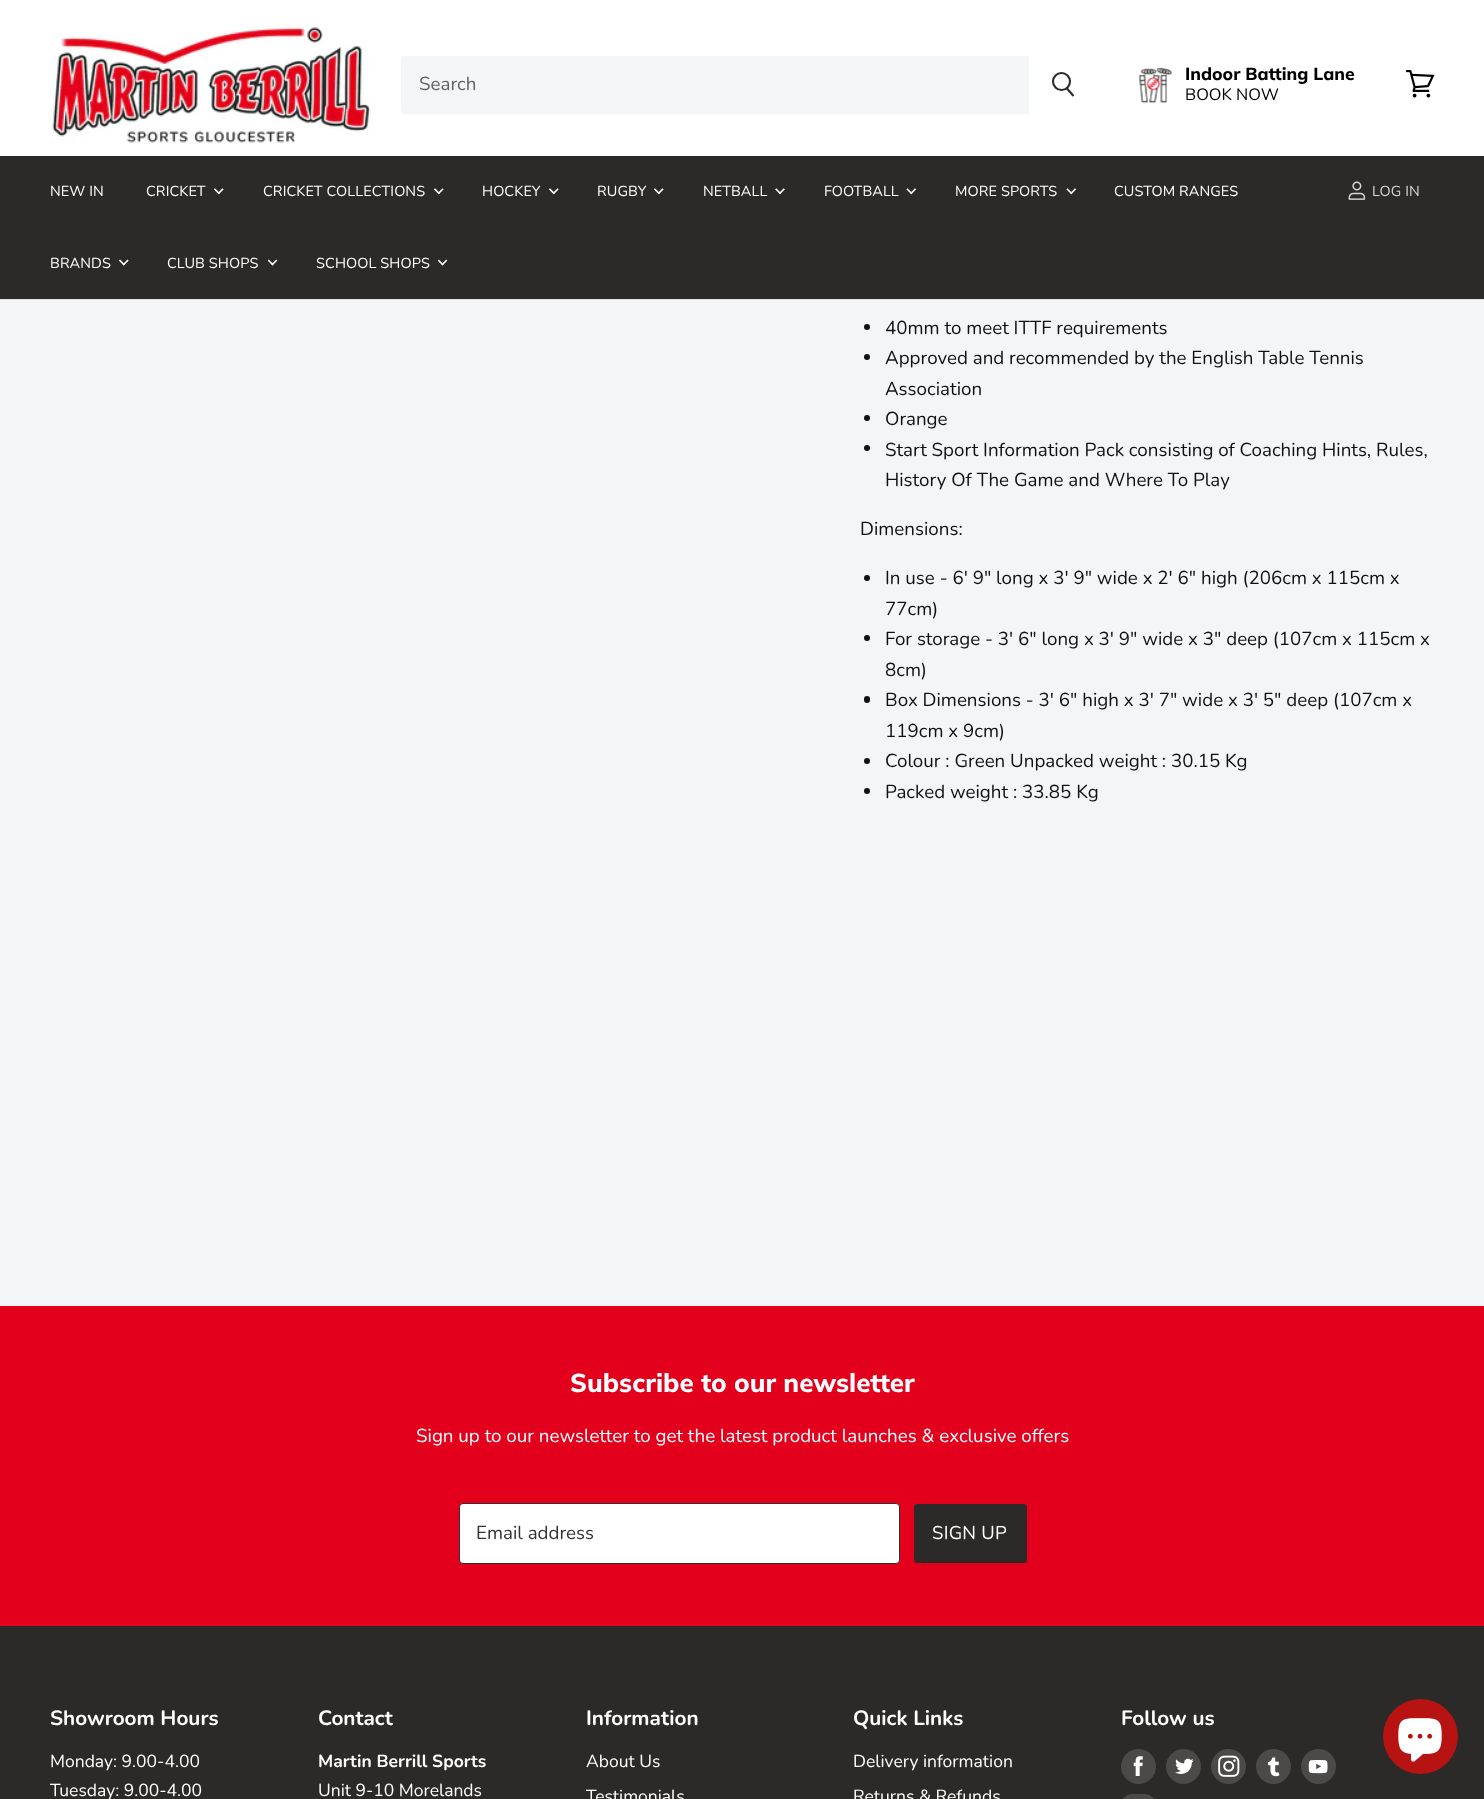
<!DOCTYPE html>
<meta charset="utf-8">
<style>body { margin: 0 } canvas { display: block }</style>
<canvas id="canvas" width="1484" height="1799"></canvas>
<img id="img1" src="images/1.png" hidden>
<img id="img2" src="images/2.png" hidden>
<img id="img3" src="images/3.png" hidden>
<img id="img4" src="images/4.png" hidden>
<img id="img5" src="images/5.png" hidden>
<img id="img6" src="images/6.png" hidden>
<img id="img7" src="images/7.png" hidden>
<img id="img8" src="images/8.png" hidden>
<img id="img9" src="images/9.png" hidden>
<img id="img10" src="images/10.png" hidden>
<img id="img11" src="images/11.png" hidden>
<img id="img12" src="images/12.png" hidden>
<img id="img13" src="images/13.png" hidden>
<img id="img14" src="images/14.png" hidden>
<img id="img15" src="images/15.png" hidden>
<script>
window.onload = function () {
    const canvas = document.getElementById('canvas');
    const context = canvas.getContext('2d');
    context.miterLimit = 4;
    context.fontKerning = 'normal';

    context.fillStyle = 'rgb(244, 245, 247)';
    context.fillRect(0, 0, 1484, 1799);
    context.fillStyle = 'rgb(255, 255, 255)';
    context.fillRect(0, 0, 1484, 156);
    context.fillStyle = 'rgb(223, 223, 223)';
    context.fillRect(0, 299, 1484, 1);
    context.drawImage(document.getElementById('img1'), 50, 25, 321, 119);
    context.fillStyle = 'rgb(244, 245, 247)';
    context.beginPath();
    context.roundRect(401, 56, 628, 58, [4, 0, 0, 4]);
    context.fill();
    context.beginPath();
    context.moveTo(1073.5, 96);
    context.lineTo(1066.5, 88);
    context.strokeStyle = 'rgb(43, 42, 41)';
    context.lineWidth = 2.1;
    context.stroke();
    context.beginPath();
    context.arc(1061.5, 81.5, 8.5, 0, 2 * Math.PI);
    context.stroke();
    context.drawImage(document.getElementById('img2'), 1138, 67, 34, 37);
    context.drawImage(document.getElementById('img3'), 1406, 70, 29, 28);
    context.fillStyle = 'rgb(43, 42, 41)';
    context.fillRect(0, 156, 1484, 143);
    context.drawImage(document.getElementById('img4'), 214, 188, 10, 7);
    context.drawImage(document.getElementById('img4'), 434, 188, 10, 7);
    context.drawImage(document.getElementById('img4'), 549, 188, 10, 7);
    context.drawImage(document.getElementById('img4'), 654, 188, 10, 7);
    context.drawImage(document.getElementById('img5'), 775, 188, 10, 7);
    context.drawImage(document.getElementById('img6'), 906, 188, 10, 7);
    context.drawImage(document.getElementById('img6'), 1066, 188, 10, 7);
    context.drawImage(document.getElementById('img7'), 119, 259, 10, 7);
    context.drawImage(document.getElementById('img8'), 268, 259, 10, 7);
    context.drawImage(document.getElementById('img8'), 438, 259, 10, 7);
    context.drawImage(document.getElementById('img9'), 1348, 181, 18, 19);
    context.fillStyle = 'rgb(17, 17, 17)';
    context.beginPath();
    context.arc(867, 327, 3, 0, 2 * Math.PI);
    context.fill();
    context.beginPath();
    context.arc(867, 357, 3, 0, 2 * Math.PI);
    context.fill();
    context.beginPath();
    context.arc(867, 418, 3, 0, 2 * Math.PI);
    context.fill();
    context.beginPath();
    context.arc(867, 448, 3, 0, 2 * Math.PI);
    context.fill();
    context.beginPath();
    context.arc(867, 578, 3, 0, 2 * Math.PI);
    context.fill();
    context.beginPath();
    context.arc(867, 638, 3, 0, 2 * Math.PI);
    context.fill();
    context.beginPath();
    context.roundRect(864, 696, 6, 7, 3);
    context.fill();
    context.beginPath();
    context.arc(867, 761, 3, 0, 2 * Math.PI);
    context.fill();
    context.beginPath();
    context.arc(867, 791, 3, 0, 2 * Math.PI);
    context.fill();
    context.fillStyle = 'rgb(227, 0, 28)';
    context.fillRect(0, 1306, 1484, 320);
    context.fillStyle = 'rgb(255, 255, 255)';
    context.beginPath();
    context.roundRect(459.5, 1503.5, 440, 60, 3.5);
    context.fill();
    context.strokeStyle = 'rgb(49, 49, 49)';
    context.lineWidth = 1;
    context.stroke();
    context.fillStyle = 'rgb(43, 42, 41)';
    context.beginPath();
    context.roundRect(913.5, 1503.5, 114, 60, 3.5);
    context.fill();
    context.strokeStyle = 'rgb(227, 0, 28)';
    context.stroke();
    context.fillRect(0, 1626, 1484, 173);
    context.fillStyle = 'rgb(75, 74, 73)';
    context.beginPath();
    context.arc(1138.5, 1766.5, 17.5, 0, 2 * Math.PI);
    context.fill();
    context.drawImage(document.getElementById('img10'), 1133, 1756, 10, 20);
    context.beginPath();
    context.arc(1183.5, 1766.5, 17.5, 0, 2 * Math.PI);
    context.fill();
    context.drawImage(document.getElementById('img11'), 1175, 1758, 19, 16);
    context.beginPath();
    context.arc(1228.5, 1766.5, 17.5, 0, 2 * Math.PI);
    context.fill();
    context.drawImage(document.getElementById('img12'), 1218, 1755, 22, 22);
    context.beginPath();
    context.arc(1273.5, 1766.5, 17.5, 0, 2 * Math.PI);
    context.fill();
    context.drawImage(document.getElementById('img13'), 1268, 1757, 12, 20);
    context.beginPath();
    context.arc(1318.5, 1766.5, 17.5, 0, 2 * Math.PI);
    context.fill();
    context.drawImage(document.getElementById('img14'), 1308, 1760, 20, 14);
    context.beginPath();
    context.roundRect(1121, 1794, 35, 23, 17.5);
    context.fill();
    context.fillStyle = 'rgb(183, 19, 19)';
    context.beginPath();
    context.arc(1420.5, 1736.5, 37.5, 0, 2 * Math.PI);
    context.fill();
    context.drawImage(document.getElementById('img15'), 1398, 1718, 44, 44);
    context.font = '18.75px Nunito';
    context.fillStyle = 'rgb(98, 98, 99)';
    context.fillText('Search', 419, 90);
    context.font = '800 17.5px Muli';
    context.fillStyle = 'rgb(0, 0, 0)';
    context.fillText('Indoor Batting Lane', 1185, 80);
    context.font = '16.5px Nunito';
    context.fillText('BOOK NOW', 1185, 100);
    context.letterSpacing = '0.1px';
    context.font = '14.5px Nunito';
    context.fillStyle = 'rgb(255, 255, 255)';
    context.fillText('NEW IN', 50, 196);
    context.fillText('CRICKET', 146, 196);
    context.fillText('CRICKET COLLECTIONS', 263, 196);
    context.fillText('HOCKEY', 482, 196);
    context.fillText('RUGBY', 597, 196);
    context.fillText('NETBALL', 703, 196);
    context.fillText('FOOTBALL', 824, 196);
    context.fillText('MORE SPORTS', 955, 196);
    context.fillText('CUSTOM RANGES', 1114, 196);
    context.fillText('BRANDS', 50, 268);
    context.fillText('CLUB SHOPS', 167, 268);
    context.fillText('SCHOOL SHOPS', 316, 268);
    context.fillStyle = 'rgb(213, 212, 212)';
    context.fillText('LOG IN', 1372, 196);
    context.letterSpacing = '0px';
    context.font = '18.75px Nunito';
    context.fillStyle = 'rgb(17, 17, 17)';
    context.fillText('40mm to meet ITTF requirements', 885, 334);
    context.fillText('Approved and recommended by the English Table Tennis', 885, 364);
    context.fillText('Association', 885, 395);
    context.fillText('Orange', 885, 425);
    context.fillText('Start Sport Information Pack consisting of Coaching Hints, Rules,', 885, 456);
    context.fillText('History Of The Game and Where To Play', 885, 486);
    context.fillText('Dimensions:', 860, 535);
    context.fillText('In use - 6\' 9" long x 3\' 9" wide x 2\' 6" high (206cm x 115cm x', 885, 584);
    context.fillText('77cm)', 885, 615);
    context.fillText('For storage - 3\' 6" long x 3\' 9" wide x 3" deep (107cm x 115cm x', 885, 645);
    context.fillText('8cm)', 885, 676);
    context.fillText('Box Dimensions - 3\' 6" high x 3\' 7" wide x 3\' 5" deep (107cm x', 885, 706);
    context.fillText('119cm x 9cm)', 885, 737);
    context.fillText('Colour : Green Unpacked weight : 30.15 Kg', 885, 767);
    context.fillText('Packed weight : 33.85 Kg', 885, 798);
    context.font = '800 25.9px Muli';
    context.fillStyle = 'rgb(255, 255, 255)';
    context.fillText('Subscribe to our newsletter', 570, 1392);
    context.font = '18.75px Nunito';
    context.fillText('Sign up to our newsletter to get the latest product launches & exclusive offers', 416, 1442);
    context.fillStyle = 'rgb(51, 51, 51)';
    context.fillText('Email address', 476, 1539);
    context.letterSpacing = '0.25px';
    context.font = '18.5px Nunito';
    context.fillStyle = 'rgb(255, 255, 255)';
    context.fillText('SIGN UP', 932, 1539);
    context.letterSpacing = '0px';
    context.font = 'bold 20.75px Nunito';
    context.fillText('Showroom Hours', 50, 1725);
    context.font = '17.5px Nunito';
    context.fillText('Monday: 9.00-4.00', 50, 1767);
    context.fillText('Tuesday: 9.00-4.00', 50, 1796);
    context.font = 'bold 20.75px Nunito';
    context.fillText('Contact', 318, 1725);
    context.font = 'bold 17.5px Nunito';
    context.fillText('Martin Berrill Sports', 318, 1767);
    context.font = '17.5px Nunito';
    context.fillText('Unit 9-10 Morelands', 318, 1796);
    context.font = 'bold 20.75px Nunito';
    context.fillText('Information', 586, 1725);
    context.font = '17.5px Nunito';
    context.fillText('About Us', 586, 1767);
    context.fillText('Testimonials', 586, 1802);
    context.font = 'bold 20.75px Nunito';
    context.fillText('Quick Links', 853, 1725);
    context.font = '17.5px Nunito';
    context.fillText('Delivery information', 853, 1767);
    context.fillText('Returns & Refunds', 853, 1802);
    context.font = 'bold 20.75px Nunito';
    context.fillText('Follow us', 1121, 1725);
};
</script>
